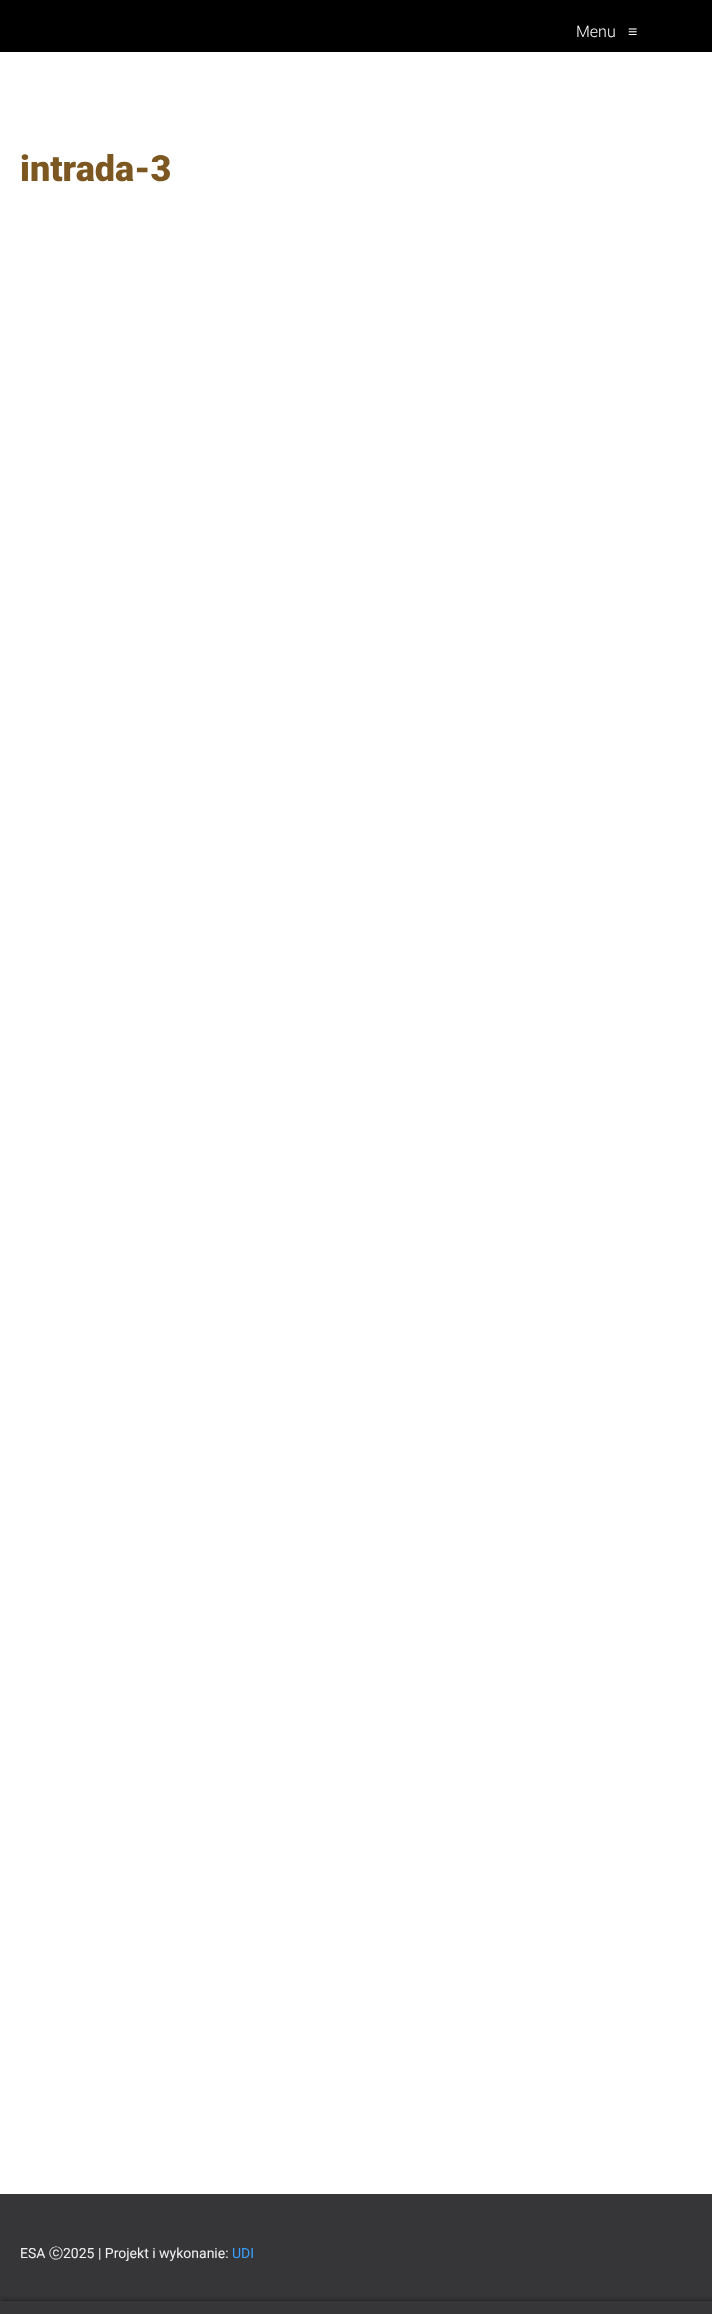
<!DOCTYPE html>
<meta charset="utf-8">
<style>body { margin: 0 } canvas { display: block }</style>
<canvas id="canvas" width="712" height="2314"></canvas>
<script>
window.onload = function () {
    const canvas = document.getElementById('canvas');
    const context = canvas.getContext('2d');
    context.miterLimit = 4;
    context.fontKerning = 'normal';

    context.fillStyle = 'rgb(255, 255, 255)';
    context.fillRect(0, 0, 712, 2314);
    context.fillStyle = 'rgb(0, 0, 0)';
    context.fillRect(0, 0, 712, 52);
    context.fillStyle = 'rgb(54, 54, 56)';
    context.fillRect(0, 2194, 712, 120);
    context.save();
    context.beginPath();
    context.rect(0, 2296, 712, 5);
    context.clip();
    context.fillStyle = 'rgb(22, 22, 22)';
    context.filter = 'blur(2.5px)';
    context.beginPath();
    context.rect(0, 2301, 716, 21);
    context.fill();
    context.filter = 'none';
    context.restore();
    context.font = '300 16px Roboto';
    context.fillStyle = 'rgb(255, 255, 255)';
    context.fillText('Menu', 576, 37);
    context.font = '16px Liberation Sans';
    context.fillText('≡', 628, 37);
    context.font = '900 36px Roboto';
    context.fillStyle = 'rgb(125, 87, 34)';
    context.fillText('intrada-3', 20, 181);
    context.font = '14px Roboto';
    context.fillStyle = 'rgb(241, 241, 241)';
    context.fillText('ESA', 20, 2258);
    context.font = '500 14px WenQuanYi Zen Hei';
    context.fillText('ⓒ', 49, 2258);
    context.font = '14px Roboto';
    context.fillText('2025 | Projekt i wykonanie:', 63, 2258);
    context.fillStyle = 'rgb(57, 160, 255)';
    context.fillText('UDI', 232, 2258);
};
</script>
